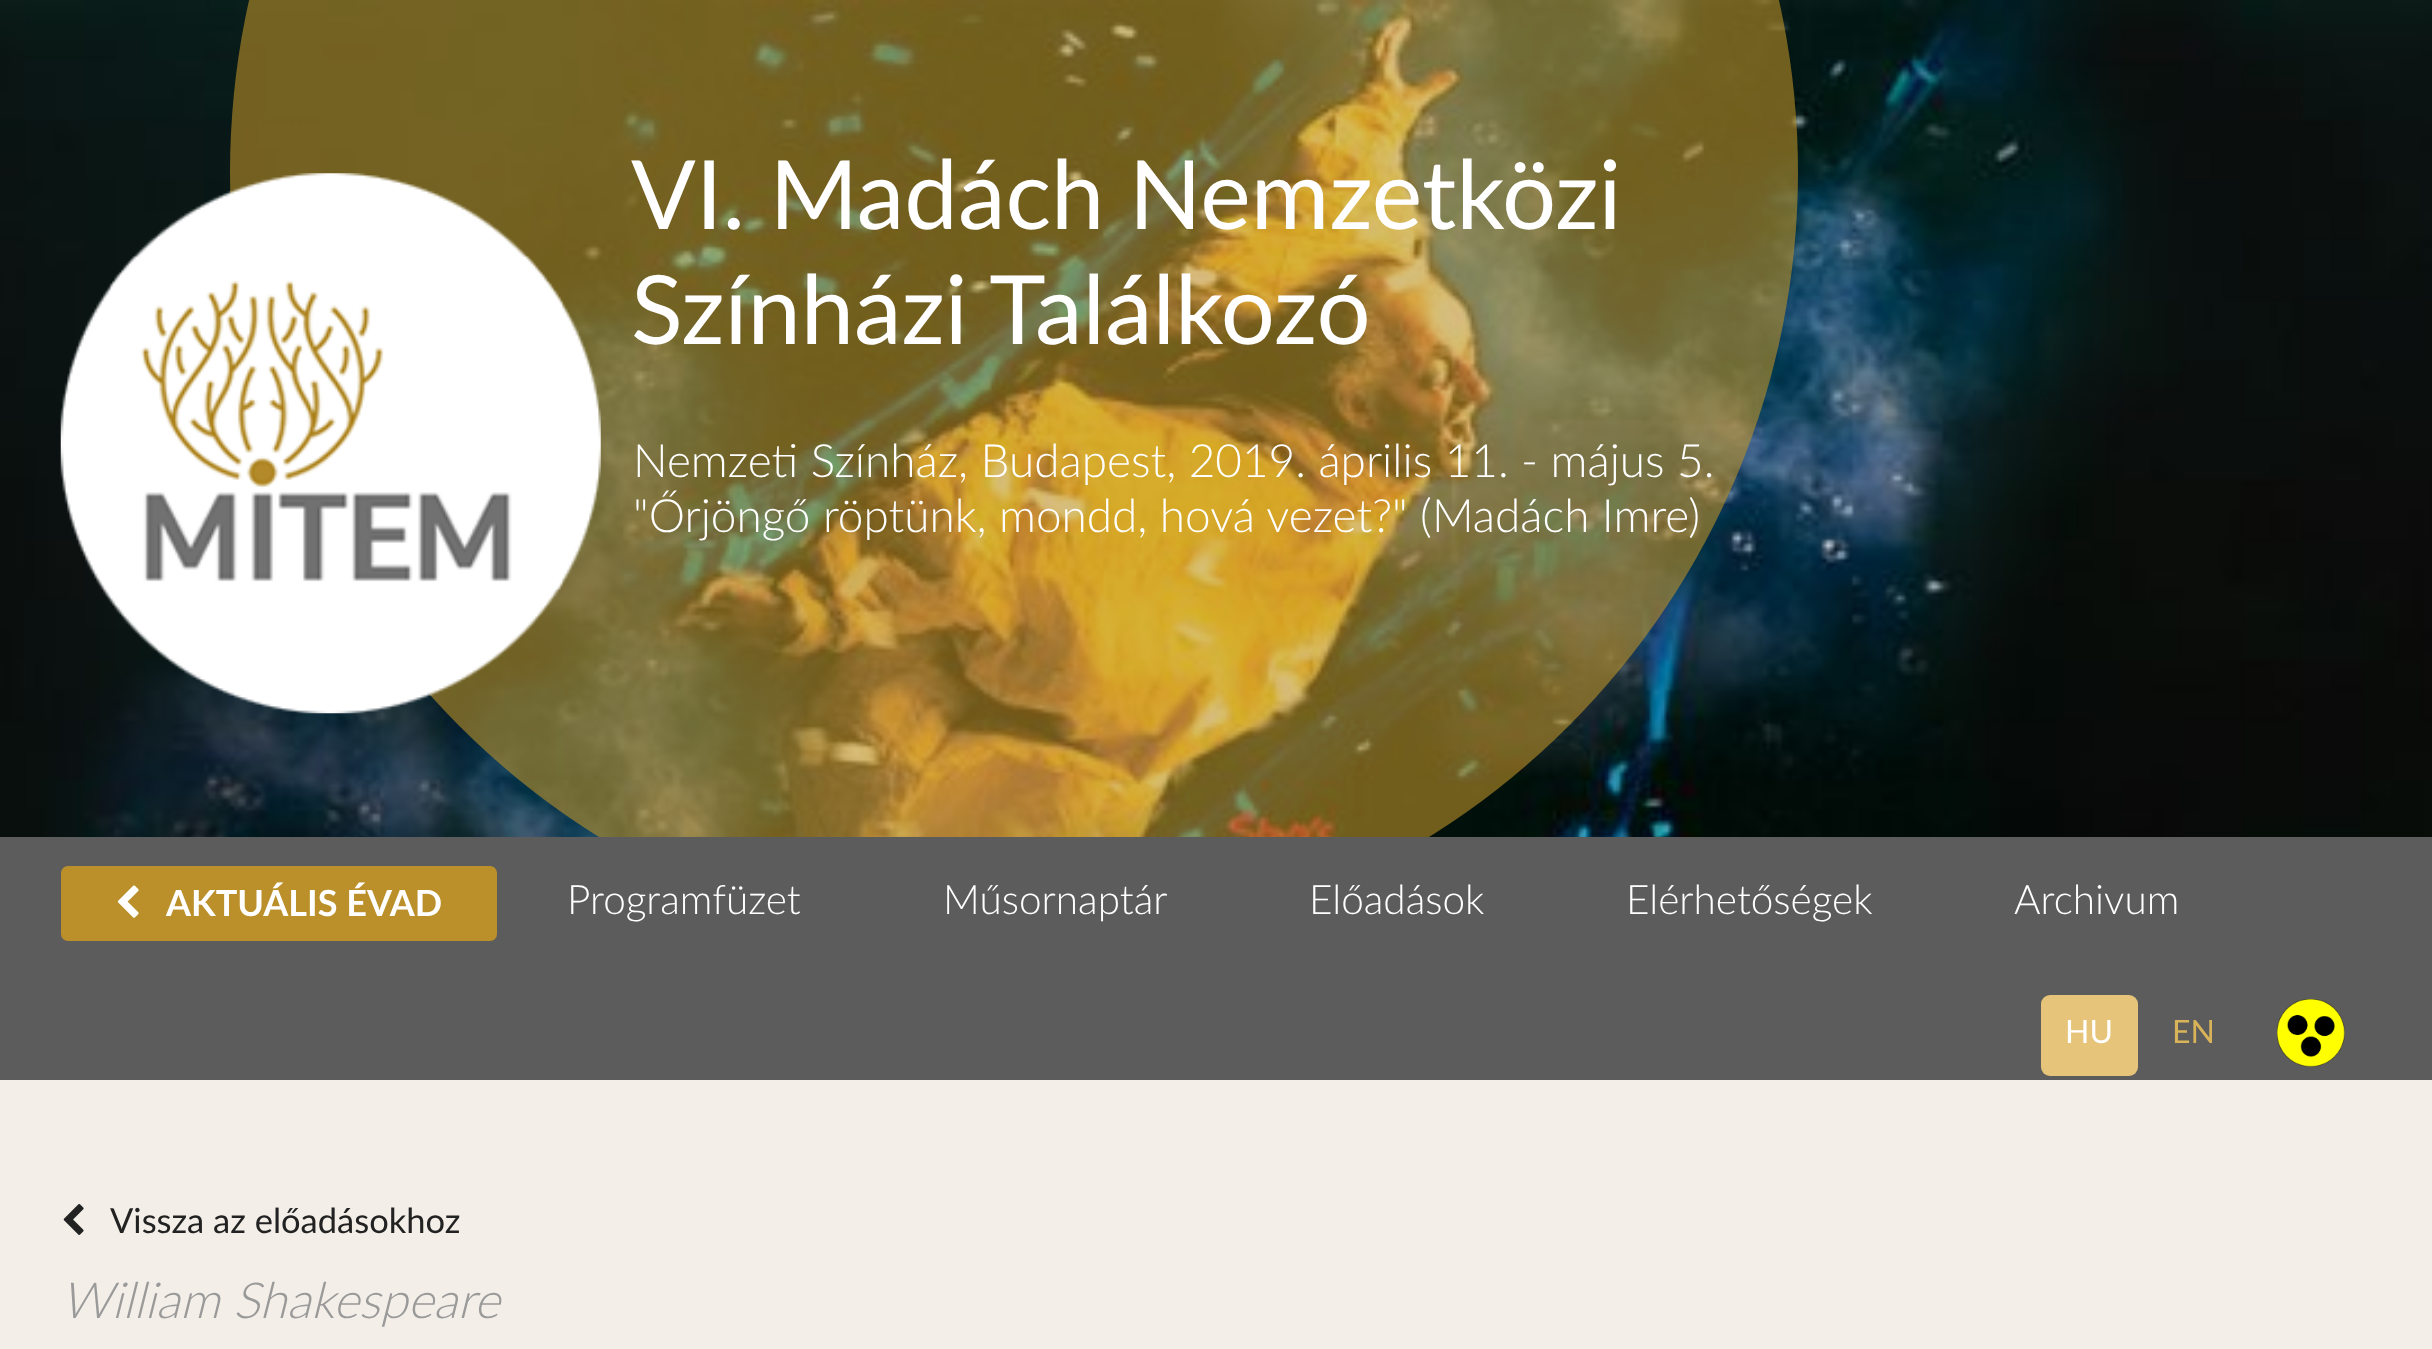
<!DOCTYPE html>
<meta charset="utf-8">
<style>body { margin: 0 } canvas { display: block }</style>
<canvas id="canvas" width="2432" height="1349"></canvas>
<img id="img1" src="images/1.png" hidden>
<img id="img2" src="images/2.png" hidden>
<img id="img3" src="images/3.png" hidden>
<img id="img4" src="images/4.png" hidden>
<img id="img5" src="images/5.png" hidden>
<script>
window.onload = function () {
    const canvas = document.getElementById('canvas');
    const context = canvas.getContext('2d');
    context.miterLimit = 4;
    context.fontKerning = 'normal';

    context.fillStyle = 'rgb(243, 238, 231)';
    context.fillRect(0, 0, 2432, 1349);
    context.drawImage(document.getElementById('img1'), 0, 0, 2432, 837);
    context.fillStyle = 'rgba(189, 145, 40, 0.6)';
    context.beginPath();
    context.arc(1014, 172, 784, 0, 2 * Math.PI);
    context.fill();
    context.drawImage(document.getElementById('img2'), 60, 173, 541, 541);
    context.fillStyle = 'rgb(92, 92, 92)';
    context.fillRect(0, 837, 2432, 243);
    context.fillStyle = 'rgb(187, 144, 42)';
    context.beginPath();
    context.roundRect(61, 866, 436, 75, 7);
    context.fill();
    context.drawImage(document.getElementById('img3'), 117, 885, 22, 33);
    context.fillStyle = 'rgb(230, 197, 122)';
    context.beginPath();
    context.roundRect(2041, 995, 97, 81, 9);
    context.fill();
    context.drawImage(document.getElementById('img4'), 2277, 999, 68, 68);
    context.drawImage(document.getElementById('img5'), 63, 1204, 21, 31);
    context.font = '95.6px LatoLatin';
    context.fillStyle = 'rgb(255, 255, 255)';
    context.fillText('VI. Madách Nemzetközi', 631, 229);
    context.fillText('Színházi Találkozó', 631, 344);
    context.font = '300 45.9px LatoLatin';
    context.fillText('Nemzeti Színház, Budapest, 2019. április 11. - május 5.', 633, 477);
    context.fillText('"Őrjöngő röptünk, mondd, hová vezet?" (Madách Imre)', 633, 532);
    context.font = 'bold 36px LatoLatin';
    context.fillText('AKTUÁLIS ÉVAD', 166, 916);
    context.font = '300 40.5px LatoLatin';
    context.fillText('Programfüzet', 567, 914);
    context.fillText('Műsornaptár', 943, 914);
    context.fillText('Előadások', 1309, 914);
    context.fillText('Elérhetőségek', 1626, 914);
    context.fillText('Archivum', 2014, 914);
    context.font = '32px LatoLatin';
    context.fillText('HU', 2065, 1043);
    context.fillStyle = 'rgb(217, 179, 89)';
    context.fillText('EN', 2172, 1043);
    context.font = '34.5px LatoLatin';
    context.fillStyle = 'rgb(34, 34, 34)';
    context.fillText('Vissza az előadásokhoz', 110, 1233);
    context.font = 'italic 300 49.75px LatoLatin';
    context.fillStyle = 'rgb(154, 154, 154)';
    context.fillText('William Shakespeare', 61, 1318);
};
</script>
